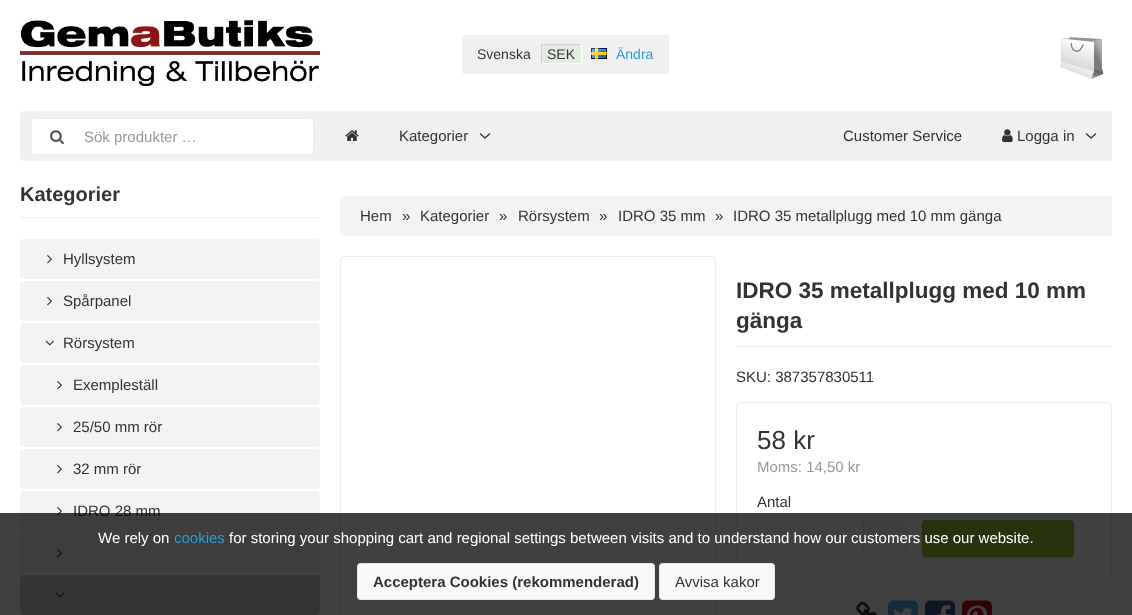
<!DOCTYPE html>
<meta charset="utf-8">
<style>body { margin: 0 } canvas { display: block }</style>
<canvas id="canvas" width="1132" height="615"></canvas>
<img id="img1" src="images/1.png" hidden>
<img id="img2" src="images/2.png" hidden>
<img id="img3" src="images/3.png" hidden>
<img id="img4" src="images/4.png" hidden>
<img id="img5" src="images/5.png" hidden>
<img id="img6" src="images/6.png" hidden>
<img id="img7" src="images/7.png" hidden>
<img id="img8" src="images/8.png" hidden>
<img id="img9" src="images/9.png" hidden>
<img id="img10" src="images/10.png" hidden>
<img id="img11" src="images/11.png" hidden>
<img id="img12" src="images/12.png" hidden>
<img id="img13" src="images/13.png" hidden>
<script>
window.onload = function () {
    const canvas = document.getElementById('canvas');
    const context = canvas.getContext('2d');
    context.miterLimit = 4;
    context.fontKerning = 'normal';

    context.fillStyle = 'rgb(255, 255, 255)';
    context.fillRect(0, 0, 1132, 615);
    context.drawImage(document.getElementById('img1'), 20, 20, 300, 66);
    context.fillStyle = 'rgb(240, 240, 240)';
    context.beginPath();
    context.roundRect(462, 35, 208, 40, 4);
    context.fill();
    context.fillStyle = 'rgb(255, 255, 255)';
    context.beginPath();
    context.moveTo(466, 35);
    context.lineTo(666, 35);
    context.bezierCurveTo(668, 35, 670, 37, 670, 39);
    context.lineTo(670, 71);
    context.bezierCurveTo(670, 73, 668, 75, 666, 75);
    context.lineTo(466, 75);
    context.bezierCurveTo(464, 75, 462, 73, 462, 71);
    context.lineTo(462, 39);
    context.bezierCurveTo(462, 37, 464, 35, 466, 35);
    context.closePath();
    context.moveTo(466, 35);
    context.lineTo(666, 35);
    context.bezierCurveTo(668, 35, 669, 37, 669, 39);
    context.lineTo(669, 71);
    context.bezierCurveTo(669, 73, 668, 74, 666, 74);
    context.lineTo(466, 74);
    context.bezierCurveTo(464, 74, 462, 73, 462, 71);
    context.lineTo(462, 39);
    context.bezierCurveTo(462, 37, 464, 35, 466, 35);
    context.closePath();
    context.fill('evenodd');
    context.fillStyle = 'rgb(227, 236, 224)';
    context.fillRect(542, 45, 39, 18);
    context.fillStyle = 'rgb(209, 209, 209)';
    context.fillRect(541, 44, 41, 1);
    context.fillStyle = 'rgb(255, 255, 255)';
    context.fillRect(581, 44, 1, 20);
    context.fillRect(541, 63, 41, 1);
    context.fillStyle = 'rgb(209, 209, 209)';
    context.fillRect(541, 44, 1, 20);
    context.drawImage(document.getElementById('img2'), 591, 48, 16, 11);
    context.drawImage(document.getElementById('img3'), 1060, 37, 44, 42);
    context.fillStyle = 'rgb(240, 240, 240)';
    context.beginPath();
    context.roundRect(20, 111, 1092, 50, 4);
    context.fill();
    context.fillStyle = 'rgb(255, 255, 255)';
    context.beginPath();
    context.roundRect(31, 118, 283, 37, 4);
    context.fill();
    context.beginPath();
    context.roundRect(31.5, 118.5, 282, 36, 3.5);
    context.strokeStyle = 'rgba(0, 0, 0, 0.07)';
    context.stroke();
    context.drawImage(document.getElementById('img4'), 50, 130, 14, 15);
    context.drawImage(document.getElementById('img5'), 345, 130, 14, 11);
    context.beginPath();
    context.moveTo(480.5, 134);
    context.lineTo(485, 138);
    context.lineTo(489.5, 134);
    context.strokeStyle = 'rgb(52, 58, 64)';
    context.lineWidth = 1.5;
    context.lineCap = 'round';
    context.lineJoin = 'round';
    context.stroke();
    context.beginPath();
    context.moveTo(1086.5, 134);
    context.lineTo(1091, 138);
    context.lineTo(1095.5, 134);
    context.stroke();
    context.drawImage(document.getElementById('img6'), 1002, 129, 11, 14);
    context.fillStyle = 'rgb(236, 236, 236)';
    context.fillRect(20, 217, 300, 1);
    context.fillStyle = 'rgb(243, 243, 243)';
    context.beginPath();
    context.roundRect(20, 239, 300, 40, 4);
    context.fill();
    context.drawImage(document.getElementById('img7'), 47, 255, 5, 9);
    context.beginPath();
    context.roundRect(20, 281, 300, 40, 4);
    context.fill();
    context.drawImage(document.getElementById('img7'), 47, 297, 5, 9);
    context.beginPath();
    context.roundRect(20, 323, 300, 40, 4);
    context.fill();
    context.drawImage(document.getElementById('img8'), 45, 340, 9, 6);
    context.beginPath();
    context.roundRect(20, 365, 300, 40, 4);
    context.fill();
    context.drawImage(document.getElementById('img7'), 57, 381, 5, 9);
    context.beginPath();
    context.roundRect(20, 407, 300, 40, 4);
    context.fill();
    context.drawImage(document.getElementById('img7'), 57, 423, 5, 9);
    context.beginPath();
    context.roundRect(20, 449, 300, 40, 4);
    context.fill();
    context.drawImage(document.getElementById('img7'), 57, 465, 5, 9);
    context.beginPath();
    context.roundRect(20, 491, 300, 40, 4);
    context.fill();
    context.drawImage(document.getElementById('img7'), 57, 507, 5, 9);
    context.beginPath();
    context.roundRect(20, 533, 300, 40, 4);
    context.fill();
    context.drawImage(document.getElementById('img7'), 57, 549, 5, 9);
    context.fillStyle = 'rgb(205, 205, 205)';
    context.beginPath();
    context.roundRect(20, 575, 300, 40, 4);
    context.fill();
    context.drawImage(document.getElementById('img9'), 55, 592, 9, 6);
    context.fillStyle = 'rgb(243, 243, 243)';
    context.beginPath();
    context.roundRect(340, 196, 772, 40, 4);
    context.fill();
    context.beginPath();
    context.roundRect(340.5, 256.5, 375, 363, 3.5);
    context.strokeStyle = 'rgb(236, 236, 236)';
    context.lineWidth = 1;
    context.lineJoin = 'miter';
    context.stroke();
    context.fillStyle = 'rgb(236, 236, 236)';
    context.fillRect(736, 346, 376, 1);
    context.beginPath();
    context.roundRect(736.5, 402.5, 375, 175, 3.5);
    context.stroke();
    context.beginPath();
    context.roundRect(757.5, 520.5, 149, 36, 3.5);
    context.stroke();
    context.fillStyle = 'rgb(249, 249, 249)';
    context.beginPath();
    context.roundRect(863, 521, 44, 35, [0, 4, 4, 0]);
    context.fill();
    context.fillStyle = 'rgba(0, 0, 0, 0.07)';
    context.fillRect(906, 523, 1, 31);
    context.fillStyle = 'rgb(230, 230, 230)';
    context.fillRect(863, 521, 1, 35);
    context.fillStyle = 'rgba(0, 0, 0, 0.1)';
    context.filter = 'blur(0.5px)';
    context.beginPath();
    context.roundRect(922, 521, 152, 37, 4);
    context.fill();
    context.filter = 'none';
    context.fillStyle = 'rgb(152, 204, 52)';
    context.beginPath();
    context.roundRect(922, 520, 152, 37, 4);
    context.fill();
    context.beginPath();
    context.roundRect(922.5, 520.5, 151, 36, 3.5);
    context.strokeStyle = 'rgba(0, 0, 0, 0.07)';
    context.stroke();
    context.drawImage(document.getElementById('img10'), 856, 601, 22, 14);
    context.drawImage(document.getElementById('img11'), 888, 600, 30, 15);
    context.drawImage(document.getElementById('img12'), 925, 600, 30, 15);
    context.drawImage(document.getElementById('img13'), 962, 600, 30, 15);
    context.font = '14px Liberation Sans';
    context.fillStyle = 'rgb(51, 51, 51)';
    context.fillText('Svenska', 477, 59);
    context.fillText('SEK', 547, 59);
    context.fillStyle = 'rgb(46, 156, 212)';
    context.fillText('Ändra', 616, 59);
    context.font = '15px Liberation Sans';
    context.fillStyle = 'rgb(153, 153, 153)';
    context.fillText('Sök produkter …', 84, 142);
    context.fillStyle = 'rgb(51, 51, 51)';
    context.fillText('Kategorier', 399, 141);
    context.fillText('Customer Service', 843, 141);
    context.fillText('Logga in', 1017, 141);
    context.font = 'bold 20px Liberation Sans';
    context.fillText('Kategorier', 20, 201);
    context.font = '15px Liberation Sans';
    context.fillText('Hyllsystem', 63, 264);
    context.fillText('Spårpanel', 63, 306);
    context.fillText('Rörsystem', 63, 348);
    context.fillText('Exempleställ', 73, 390);
    context.fillText('25/50 mm rör', 73, 432);
    context.fillText('32 mm rör', 73, 474);
    context.fillText('IDRO 28 mm', 73, 516);
    context.fillText('Hem', 360, 221);
    context.fillText('»', 402, 221);
    context.fillText('Kategorier', 420, 221);
    context.fillText('»', 499, 221);
    context.fillText('Rörsystem', 518, 221);
    context.fillText('»', 599, 221);
    context.fillText('IDRO 35 mm', 618, 221);
    context.fillText('»', 715, 221);
    context.fillText('IDRO 35 metallplugg med 10 mm gänga', 733, 221);
    context.font = 'bold 22.5px Liberation Sans';
    context.fillText('IDRO 35 metallplugg med 10 mm', 736, 298);
    context.fillText('gänga', 736, 328);
    context.font = '15px Liberation Sans';
    context.fillText('SKU: 387357830511', 736, 382);
    context.font = '26px Liberation Sans';
    context.fillText('58 kr', 757, 449);
    context.font = '15px Liberation Sans';
    context.fillStyle = 'rgb(153, 153, 153)';
    context.fillText('Moms: 14,50 kr', 757, 472);
    context.fillStyle = 'rgb(51, 51, 51)';
    context.fillText('Antal', 757, 507);
    context.fillStyle = 'rgba(0, 0, 0, 0.75)';
    context.fillRect(0, 513, 1132, 102);
    context.fillStyle = 'rgb(255, 255, 255)';
    context.fillText('We rely on', 98, 543);
    context.fillStyle = 'rgb(46, 156, 212)';
    context.fillText('cookies', 174, 543);
    context.fillStyle = 'rgb(255, 255, 255)';
    context.fillText('for storing your shopping cart and regional settings between visits and to understand how our customers use our website.', 229, 543);
    context.fillStyle = 'rgb(249, 249, 249)';
    context.beginPath();
    context.roundRect(357, 563, 298, 37, 4);
    context.fill();
    context.beginPath();
    context.roundRect(357.5, 563.5, 297, 36, 3.5);
    context.stroke();
    context.font = 'bold 15px Liberation Sans';
    context.fillStyle = 'rgb(51, 51, 51)';
    context.fillText('Acceptera Cookies (rekommenderad)', 373, 587);
    context.fillStyle = 'rgb(249, 249, 249)';
    context.beginPath();
    context.roundRect(659, 563, 116, 37, 4);
    context.fill();
    context.beginPath();
    context.roundRect(659.5, 563.5, 115, 36, 3.5);
    context.stroke();
    context.font = '15px Liberation Sans';
    context.fillStyle = 'rgb(51, 51, 51)';
    context.fillText('Avvisa kakor', 675, 587);
};
</script>
